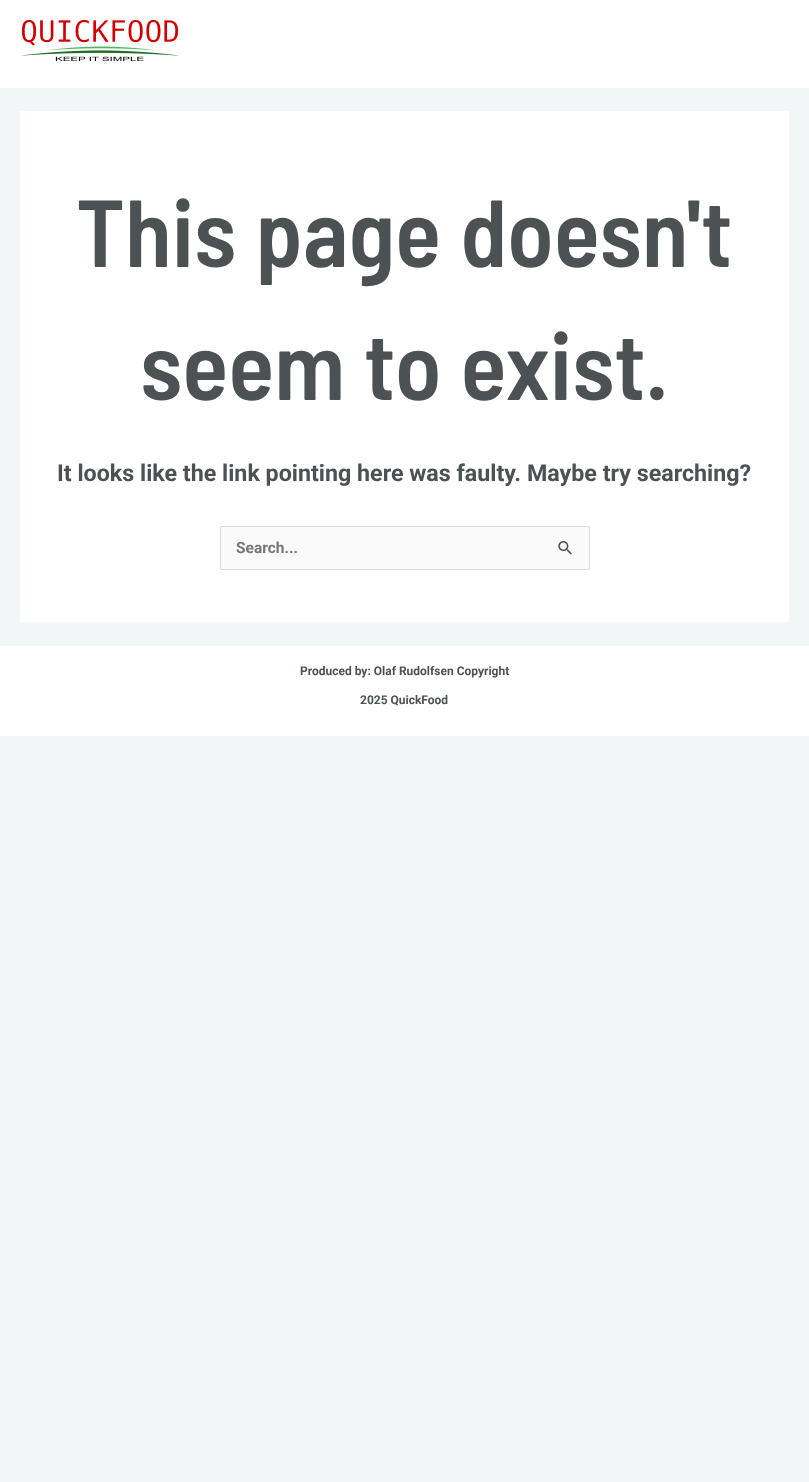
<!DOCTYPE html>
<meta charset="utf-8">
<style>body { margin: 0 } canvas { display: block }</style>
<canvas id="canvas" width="809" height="1482"></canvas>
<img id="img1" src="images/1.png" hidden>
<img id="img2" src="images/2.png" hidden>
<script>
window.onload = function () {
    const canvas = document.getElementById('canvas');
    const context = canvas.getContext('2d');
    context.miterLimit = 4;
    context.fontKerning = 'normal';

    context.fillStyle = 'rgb(243, 246, 246)';
    context.fillRect(0, 0, 809, 1482);
    context.fillStyle = 'rgb(255, 255, 255)';
    context.fillRect(0, 0, 809, 88);
    context.drawImage(document.getElementById('img1'), 21, 19, 158, 43);
    context.fillRect(20, 111, 769, 511);
    context.fillStyle = 'rgb(250, 250, 250)';
    context.beginPath();
    context.roundRect(220.5, 526.5, 369, 43, 1.5);
    context.fill();
    context.strokeStyle = 'rgb(221, 221, 221)';
    context.stroke();
    context.drawImage(document.getElementById('img2'), 558, 541, 14, 14);
    context.fillStyle = 'rgb(255, 255, 255)';
    context.fillRect(0, 646, 809, 90);
    context.font = '600 95px Barlow Semi Condensed';
    context.fillStyle = 'rgb(76, 82, 83)';
    context.fillText('This page doesn\'t', 76, 267);
    context.fillText('seem to exist.', 140, 400);
    context.font = 'bold 23.25px Roboto';
    context.fillText('It looks like the link pointing here was faulty. Maybe try searching?', 57, 481);
    context.font = 'bold 15.5px Roboto';
    context.fillStyle = 'rgb(117, 117, 117)';
    context.fillText('Search...', 236, 553);
    context.font = 'bold 12px Roboto';
    context.fillStyle = 'rgb(76, 82, 83)';
    context.fillText('Produced by: Olaf Rudolfsen Copyright', 300, 675);
    context.fillText('2025 QuickFood', 360, 704);
};
</script>
